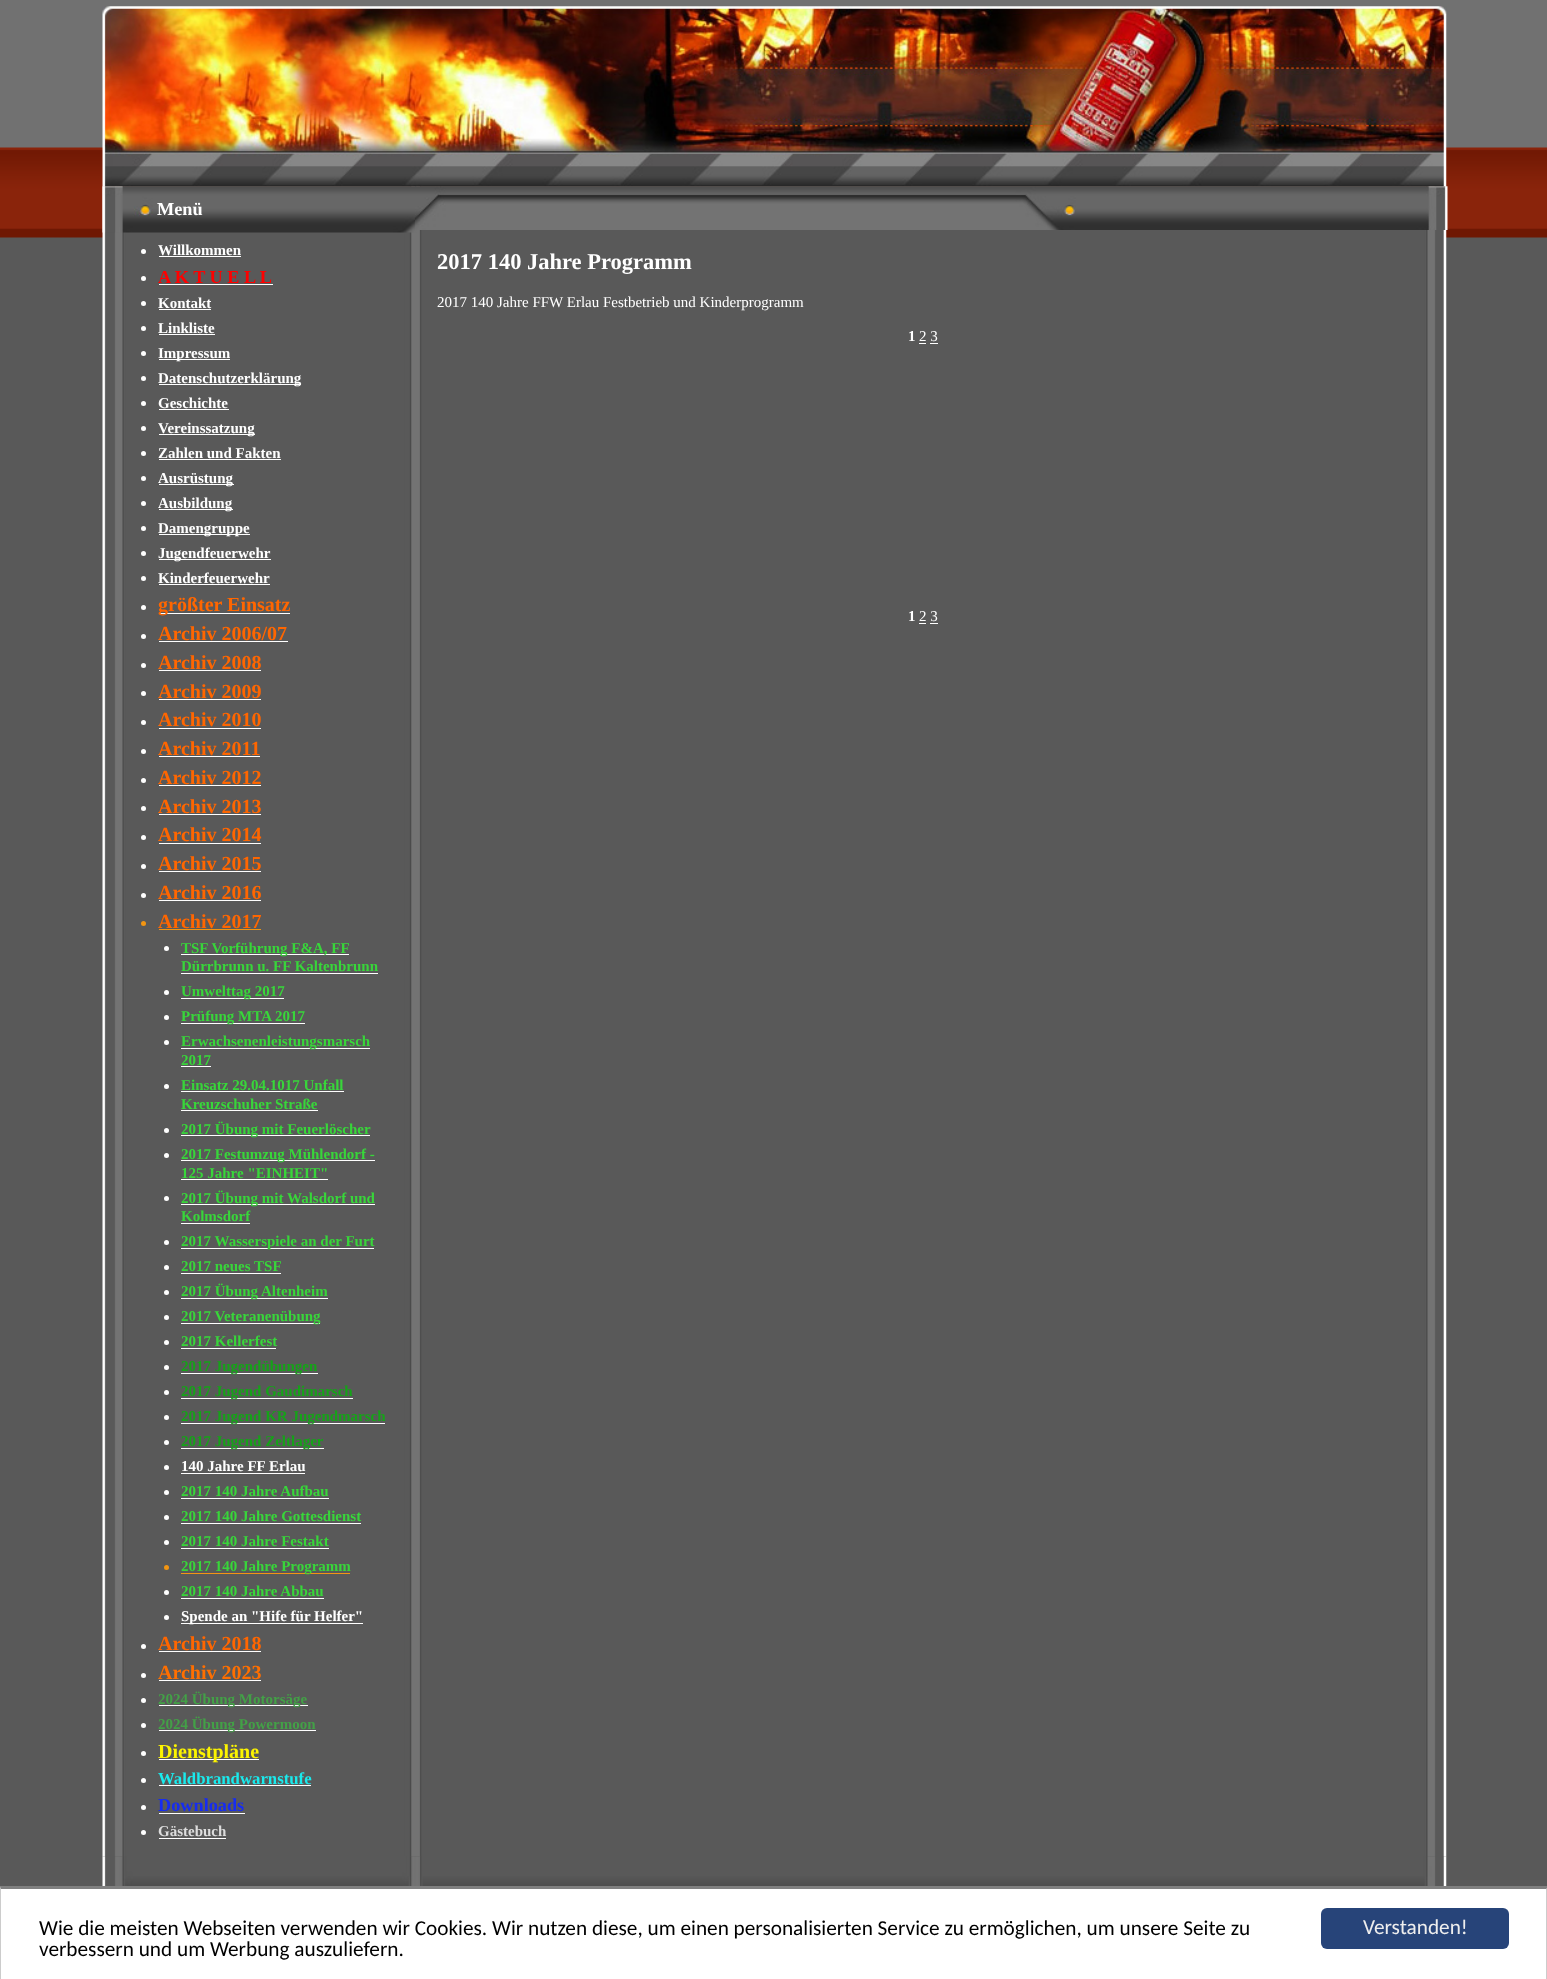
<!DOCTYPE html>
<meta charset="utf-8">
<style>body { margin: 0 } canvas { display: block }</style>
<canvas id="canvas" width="1547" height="1979"></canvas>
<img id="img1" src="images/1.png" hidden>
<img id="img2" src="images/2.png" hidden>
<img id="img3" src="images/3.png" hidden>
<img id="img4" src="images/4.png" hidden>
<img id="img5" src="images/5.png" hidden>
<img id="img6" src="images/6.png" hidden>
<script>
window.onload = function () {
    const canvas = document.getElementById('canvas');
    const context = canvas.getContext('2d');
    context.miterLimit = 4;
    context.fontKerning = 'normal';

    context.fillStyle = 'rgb(89, 89, 89)';
    context.fillRect(0, 0, 1547, 1979);
    context.drawImage(document.getElementById('img1'), 0, 0, 1547, 238);
    context.drawImage(document.getElementById('img2'), 102, 6, 1345, 181);
    context.drawImage(document.getElementById('img3'), 102, 186, 1345, 1671);
    context.drawImage(document.getElementById('img4'), 102, 186, 315, 47);
    context.fillStyle = 'rgb(255, 255, 255)';
    context.beginPath();
    context.arc(143.5, 251.5, 2.5, 0, 2 * Math.PI);
    context.fill();
    context.fillRect(159, 256, 82, 1);
    context.beginPath();
    context.arc(143.5, 278.5, 2.5, 0, 2 * Math.PI);
    context.fill();
    context.fillRect(159, 284, 114, 1);
    context.beginPath();
    context.arc(143.5, 303.5, 2.5, 0, 2 * Math.PI);
    context.fill();
    context.fillRect(159, 309, 52, 1);
    context.beginPath();
    context.arc(143.5, 328.5, 2.5, 0, 2 * Math.PI);
    context.fill();
    context.fillRect(159, 334, 56, 1);
    context.beginPath();
    context.arc(143.5, 353.5, 2.5, 0, 2 * Math.PI);
    context.fill();
    context.fillRect(159, 359, 71, 1);
    context.beginPath();
    context.arc(143.5, 378.5, 2.5, 0, 2 * Math.PI);
    context.fill();
    context.fillRect(159, 384, 142, 1);
    context.beginPath();
    context.arc(143.5, 403.5, 2.5, 0, 2 * Math.PI);
    context.fill();
    context.fillRect(159, 409, 70, 1);
    context.beginPath();
    context.arc(143.5, 428.5, 2.5, 0, 2 * Math.PI);
    context.fill();
    context.fillRect(159, 434, 96, 1);
    context.beginPath();
    context.arc(143.5, 453.5, 2.5, 0, 2 * Math.PI);
    context.fill();
    context.fillRect(159, 459, 122, 1);
    context.beginPath();
    context.arc(143.5, 478.5, 2.5, 0, 2 * Math.PI);
    context.fill();
    context.fillRect(159, 484, 75, 1);
    context.beginPath();
    context.arc(143.5, 503.5, 2.5, 0, 2 * Math.PI);
    context.fill();
    context.fillRect(159, 509, 74, 1);
    context.beginPath();
    context.arc(143.5, 528.5, 2.5, 0, 2 * Math.PI);
    context.fill();
    context.fillRect(159, 534, 91, 1);
    context.beginPath();
    context.arc(143.5, 553.5, 2.5, 0, 2 * Math.PI);
    context.fill();
    context.fillRect(159, 559, 112, 1);
    context.beginPath();
    context.arc(143.5, 578.5, 2.5, 0, 2 * Math.PI);
    context.fill();
    context.fillRect(159, 584, 111, 1);
    context.beginPath();
    context.arc(143.5, 607.5, 2.5, 0, 2 * Math.PI);
    context.fill();
    context.fillRect(159, 613, 131, 1);
    context.beginPath();
    context.arc(143.5, 636.5, 2.5, 0, 2 * Math.PI);
    context.fill();
    context.fillRect(159, 641, 129, 1);
    context.beginPath();
    context.arc(143.5, 665.5, 2.5, 0, 2 * Math.PI);
    context.fill();
    context.fillRect(159, 670, 102, 1);
    context.beginPath();
    context.arc(143.5, 693.5, 2.5, 0, 2 * Math.PI);
    context.fill();
    context.fillRect(159, 699, 102, 1);
    context.beginPath();
    context.arc(143.5, 722.5, 2.5, 0, 2 * Math.PI);
    context.fill();
    context.fillRect(159, 728, 102, 1);
    context.beginPath();
    context.arc(143.5, 751.5, 2.5, 0, 2 * Math.PI);
    context.fill();
    context.fillRect(159, 756, 101, 1);
    context.beginPath();
    context.arc(143.5, 780.5, 2.5, 0, 2 * Math.PI);
    context.fill();
    context.fillRect(159, 785, 102, 1);
    context.beginPath();
    context.arc(143.5, 808.5, 2.5, 0, 2 * Math.PI);
    context.fill();
    context.fillRect(159, 814, 102, 1);
    context.beginPath();
    context.arc(143.5, 837.5, 2.5, 0, 2 * Math.PI);
    context.fill();
    context.fillRect(159, 843, 102, 1);
    context.beginPath();
    context.arc(143.5, 866.5, 2.5, 0, 2 * Math.PI);
    context.fill();
    context.fillRect(159, 871, 102, 1);
    context.beginPath();
    context.arc(143.5, 895.5, 2.5, 0, 2 * Math.PI);
    context.fill();
    context.fillRect(159, 900, 102, 1);
    context.fillStyle = 'rgb(242, 149, 18)';
    context.beginPath();
    context.arc(143.5, 923.5, 2.5, 0, 2 * Math.PI);
    context.fill();
    context.fillRect(159, 929, 102, 1);
    context.fillStyle = 'rgb(255, 255, 255)';
    context.beginPath();
    context.arc(166.5, 948.5, 2.5, 0, 2 * Math.PI);
    context.fill();
    context.fillRect(181, 954, 168, 1);
    context.fillRect(181, 973, 197, 1);
    context.beginPath();
    context.arc(166.5, 992.5, 2.5, 0, 2 * Math.PI);
    context.fill();
    context.fillRect(181, 998, 103, 1);
    context.beginPath();
    context.arc(166.5, 1017.5, 2.5, 0, 2 * Math.PI);
    context.fill();
    context.fillRect(181, 1023, 124, 1);
    context.beginPath();
    context.arc(166.5, 1042.5, 2.5, 0, 2 * Math.PI);
    context.fill();
    context.fillRect(181, 1048, 189, 1);
    context.fillRect(181, 1066, 30, 1);
    context.beginPath();
    context.arc(166.5, 1086.5, 2.5, 0, 2 * Math.PI);
    context.fill();
    context.fillRect(181, 1091, 163, 1);
    context.fillRect(181, 1110, 137, 1);
    context.beginPath();
    context.arc(166.5, 1130.5, 2.5, 0, 2 * Math.PI);
    context.fill();
    context.fillRect(181, 1135, 189, 1);
    context.beginPath();
    context.arc(166.5, 1155.5, 2.5, 0, 2 * Math.PI);
    context.fill();
    context.fillRect(181, 1160, 194, 1);
    context.fillRect(181, 1179, 147, 1);
    context.beginPath();
    context.arc(166.5, 1198.5, 2.5, 0, 2 * Math.PI);
    context.fill();
    context.fillRect(181, 1204, 194, 1);
    context.fillRect(181, 1223, 69, 1);
    context.beginPath();
    context.arc(166.5, 1242.5, 2.5, 0, 2 * Math.PI);
    context.fill();
    context.fillRect(181, 1248, 193, 1);
    context.beginPath();
    context.arc(166.5, 1267.5, 2.5, 0, 2 * Math.PI);
    context.fill();
    context.fillRect(181, 1273, 100, 1);
    context.beginPath();
    context.arc(166.5, 1292.5, 2.5, 0, 2 * Math.PI);
    context.fill();
    context.fillRect(181, 1298, 147, 1);
    context.beginPath();
    context.arc(166.5, 1317.5, 2.5, 0, 2 * Math.PI);
    context.fill();
    context.fillRect(181, 1323, 139, 1);
    context.beginPath();
    context.arc(166.5, 1342.5, 2.5, 0, 2 * Math.PI);
    context.fill();
    context.fillRect(181, 1348, 95, 1);
    context.beginPath();
    context.arc(166.5, 1367.5, 2.5, 0, 2 * Math.PI);
    context.fill();
    context.fillRect(181, 1373, 137, 1);
    context.beginPath();
    context.arc(166.5, 1392.5, 2.5, 0, 2 * Math.PI);
    context.fill();
    context.fillRect(181, 1398, 172, 1);
    context.beginPath();
    context.arc(166.5, 1417.5, 2.5, 0, 2 * Math.PI);
    context.fill();
    context.fillRect(181, 1423, 204, 1);
    context.beginPath();
    context.arc(166.5, 1442.5, 2.5, 0, 2 * Math.PI);
    context.fill();
    context.fillRect(181, 1448, 143, 1);
    context.beginPath();
    context.arc(166.5, 1467.5, 2.5, 0, 2 * Math.PI);
    context.fill();
    context.fillRect(181, 1473, 124, 1);
    context.beginPath();
    context.arc(166.5, 1492.5, 2.5, 0, 2 * Math.PI);
    context.fill();
    context.fillRect(181, 1498, 148, 1);
    context.beginPath();
    context.arc(166.5, 1517.5, 2.5, 0, 2 * Math.PI);
    context.fill();
    context.fillRect(181, 1523, 180, 1);
    context.beginPath();
    context.arc(166.5, 1542.5, 2.5, 0, 2 * Math.PI);
    context.fill();
    context.fillRect(181, 1548, 148, 1);
    context.fillStyle = 'rgb(242, 149, 18)';
    context.beginPath();
    context.arc(166.5, 1567.5, 2.5, 0, 2 * Math.PI);
    context.fill();
    context.fillRect(181, 1573, 169, 1);
    context.fillStyle = 'rgb(255, 255, 255)';
    context.beginPath();
    context.arc(166.5, 1592.5, 2.5, 0, 2 * Math.PI);
    context.fill();
    context.fillRect(181, 1598, 143, 1);
    context.beginPath();
    context.arc(166.5, 1617.5, 2.5, 0, 2 * Math.PI);
    context.fill();
    context.fillRect(181, 1623, 182, 1);
    context.beginPath();
    context.arc(143.5, 1646.5, 2.5, 0, 2 * Math.PI);
    context.fill();
    context.fillRect(159, 1651, 102, 1);
    context.beginPath();
    context.arc(143.5, 1675.5, 2.5, 0, 2 * Math.PI);
    context.fill();
    context.fillRect(159, 1680, 102, 1);
    context.beginPath();
    context.arc(143.5, 1700.5, 2.5, 0, 2 * Math.PI);
    context.fill();
    context.fillRect(159, 1705, 149, 1);
    context.beginPath();
    context.arc(143.5, 1725.5, 2.5, 0, 2 * Math.PI);
    context.fill();
    context.fillRect(159, 1730, 157, 1);
    context.beginPath();
    context.arc(143.5, 1753.5, 2.5, 0, 2 * Math.PI);
    context.fill();
    context.fillRect(159, 1759, 100, 1);
    context.beginPath();
    context.arc(143.5, 1780.5, 2.5, 0, 2 * Math.PI);
    context.fill();
    context.fillRect(159, 1785, 152, 1);
    context.beginPath();
    context.arc(143.5, 1807.5, 2.5, 0, 2 * Math.PI);
    context.fill();
    context.fillRect(159, 1813, 86, 1);
    context.beginPath();
    context.arc(143.5, 1832.5, 2.5, 0, 2 * Math.PI);
    context.fill();
    context.fillRect(159, 1838, 67, 1);
    context.drawImage(document.getElementById('img5'), 415, 186, 1033, 44);
    context.fillRect(919, 343, 7, 1);
    context.fillRect(930, 343, 8, 1);
    context.fillRect(919, 623, 7, 1);
    context.fillRect(930, 623, 8, 1);
    context.drawImage(document.getElementById('img6'), 102, 1856, 1345, 30);
    context.fillRect(1, 1889, 1545, 90);
    context.fillStyle = 'rgb(128, 128, 128)';
    context.beginPath();
    context.moveTo(0, 1886);
    context.lineTo(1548, 1886);
    context.lineTo(1546, 1889);
    context.lineTo(1, 1889);
    context.closePath();
    context.fill();
    context.fillStyle = 'rgb(204, 204, 204)';
    context.beginPath();
    context.moveTo(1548, 1886);
    context.lineTo(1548, 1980);
    context.lineTo(1546, 1979);
    context.lineTo(1546, 1889);
    context.closePath();
    context.fill();
    context.beginPath();
    context.moveTo(0, 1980);
    context.lineTo(0, 1886);
    context.lineTo(1, 1889);
    context.lineTo(1, 1979);
    context.closePath();
    context.fill();
    context.fillStyle = 'rgb(39, 68, 121)';
    context.beginPath();
    context.roundRect(1321, 1908, 188, 41, 6);
    context.fill();
    context.font = 'bold 18.25px Liberation Serif';
    context.fillStyle = 'rgb(255, 255, 255)';
    context.fillText('Menü', 157, 215);
    context.font = 'bold 15px Liberation Serif';
    context.fillText('Willkommen', 158, 255);
    context.font = 'bold 18.25px Liberation Serif';
    context.fillStyle = 'rgb(255, 0, 0)';
    context.fillText('A K T U E L L', 158, 283);
    context.font = 'bold 15px Liberation Serif';
    context.fillStyle = 'rgb(255, 255, 255)';
    context.fillText('Kontakt', 158, 308);
    context.fillText('Linkliste', 158, 333);
    context.fillText('Impressum', 158, 358);
    context.fillText('Datenschutzerklärung', 158, 383);
    context.fillText('Geschichte', 158, 408);
    context.fillText('Vereinssatzung', 158, 433);
    context.fillText('Zahlen und Fakten', 158, 458);
    context.fillText('Ausrüstung', 158, 483);
    context.fillText('Ausbildung', 158, 508);
    context.fillText('Damengruppe', 158, 533);
    context.fillText('Jugendfeuerwehr', 158, 558);
    context.fillText('Kinderfeuerwehr', 158, 583);
    context.font = 'bold 20px Liberation Serif';
    context.fillStyle = 'rgb(255, 102, 0)';
    context.fillText('größter Einsatz', 158, 611);
    context.fillText('Archiv 2006/07', 158, 640);
    context.fillText('Archiv 2008', 158, 669);
    context.fillText('Archiv 2009', 158, 698);
    context.fillText('Archiv 2010', 158, 726);
    context.fillText('Archiv 2011', 158, 755);
    context.fillText('Archiv 2012', 158, 784);
    context.fillText('Archiv 2013', 158, 813);
    context.fillText('Archiv 2014', 158, 841);
    context.fillText('Archiv 2015', 158, 870);
    context.fillText('Archiv 2016', 158, 899);
    context.fillText('Archiv 2017', 158, 928);
    context.font = 'bold 15px Liberation Serif';
    context.fillStyle = 'rgb(56, 214, 58)';
    context.fillText('TSF Vorführung F&A, FF', 181, 953);
    context.fillText('Dürrbrunn u. FF Kaltenbrunn', 181, 971);
    context.fillText('Umwelttag 2017', 181, 996);
    context.fillText('Prüfung MTA 2017', 181, 1021);
    context.fillText('Erwachsenenleistungsmarsch', 181, 1046);
    context.fillText('2017', 181, 1065);
    context.fillText('Einsatz 29.04.1017 Unfall', 181, 1090);
    context.fillText('Kreuzschuher Straße', 181, 1109);
    context.fillText('2017 Übung mit Feuerlöscher', 181, 1134);
    context.fillText('2017 Festumzug Mühlendorf -', 181, 1159);
    context.fillText('125 Jahre "EINHEIT"', 181, 1178);
    context.fillText('2017 Übung mit Walsdorf und', 181, 1203);
    context.fillText('Kolmsdorf', 181, 1221);
    context.fillText('2017 Wasserspiele an der Furt', 181, 1246);
    context.fillText('2017 neues TSF', 181, 1271);
    context.fillText('2017 Übung Altenheim', 181, 1296);
    context.fillText('2017 Veteranenübung', 181, 1321);
    context.fillText('2017 Kellerfest', 181, 1346);
    context.fillStyle = 'rgb(21, 163, 24)';
    context.fillText('2017 Jugendübungen', 181, 1371);
    context.fillText('2017 Jugend Gaudimarsch', 181, 1396);
    context.fillText('2017 Jugend KR Jugendmarsch', 181, 1421);
    context.fillText('2017 Jugend Zeltlager', 181, 1446);
    context.fillStyle = 'rgb(255, 255, 255)';
    context.fillText('140 Jahre FF Erlau', 181, 1471);
    context.fillStyle = 'rgb(56, 214, 58)';
    context.fillText('2017 140 Jahre Aufbau', 181, 1496);
    context.fillText('2017 140 Jahre Gottesdienst', 181, 1521);
    context.fillText('2017 140 Jahre Festakt', 181, 1546);
    context.fillText('2017 140 Jahre Programm', 181, 1571);
    context.fillText('2017 140 Jahre Abbau', 181, 1596);
    context.fillStyle = 'rgb(255, 255, 255)';
    context.fillText('Spende an "Hife für Helfer"', 181, 1621);
    context.font = 'bold 20px Liberation Serif';
    context.fillStyle = 'rgb(255, 102, 0)';
    context.fillText('Archiv 2018', 158, 1650);
    context.fillStyle = 'rgb(255, 111, 0)';
    context.fillText('Archiv 2023', 158, 1679);
    context.font = 'bold 15px Liberation Serif';
    context.fillStyle = 'rgb(67, 160, 71)';
    context.fillText('2024 Übung Motorsäge', 158, 1704);
    context.fillText('2024 Übung Powermoon', 158, 1729);
    context.font = 'bold 20px Liberation Serif';
    context.fillStyle = 'rgb(252, 244, 0)';
    context.fillText('Dienstpläne', 158, 1758);
    context.font = 'bold 16.75px Liberation Serif';
    context.fillStyle = 'rgb(26, 234, 237)';
    context.fillText('Waldbrandwarnstufe', 158, 1784);
    context.font = 'bold 18.25px Liberation Serif';
    context.fillStyle = 'rgb(22, 44, 242)';
    context.fillText('Downloads', 158, 1811);
    context.font = 'bold 15px Liberation Serif';
    context.fillStyle = 'rgb(221, 221, 221)';
    context.fillText('Gästebuch', 158, 1836);
    context.font = 'bold 22.5px Liberation Serif';
    context.fillStyle = 'rgb(255, 255, 255)';
    context.fillText('2017 140 Jahre Programm', 437, 269);
    context.font = '15px Liberation Serif';
    context.fillText('2017 140 Jahre FFW Erlau Festbetrieb und Kinderprogramm', 437, 307);
    context.font = 'bold 15px Liberation Serif';
    context.fillText('1', 908, 341);
    context.font = '15px Liberation Serif';
    context.fillText('2 3', 919, 341);
    context.font = 'bold 15px Liberation Serif';
    context.fillText('1', 908, 621);
    context.font = '15px Liberation Serif';
    context.fillText('2 3', 919, 621);
    context.font = '21.25px Carlito';
    context.fillStyle = 'rgb(0, 0, 0)';
    context.fillText('Wie die meisten Webseiten verwenden wir Cookies. Wir nutzen diese, um einen personalisierten Service zu ermöglichen, um unsere Seite zu', 39, 1935);
    context.fillText('verbessern und um Werbung auszuliefern.', 39, 1956);
    context.fillStyle = 'rgb(238, 238, 238)';
    context.fillText('Verstanden!', 1363, 1934);
};
</script>
